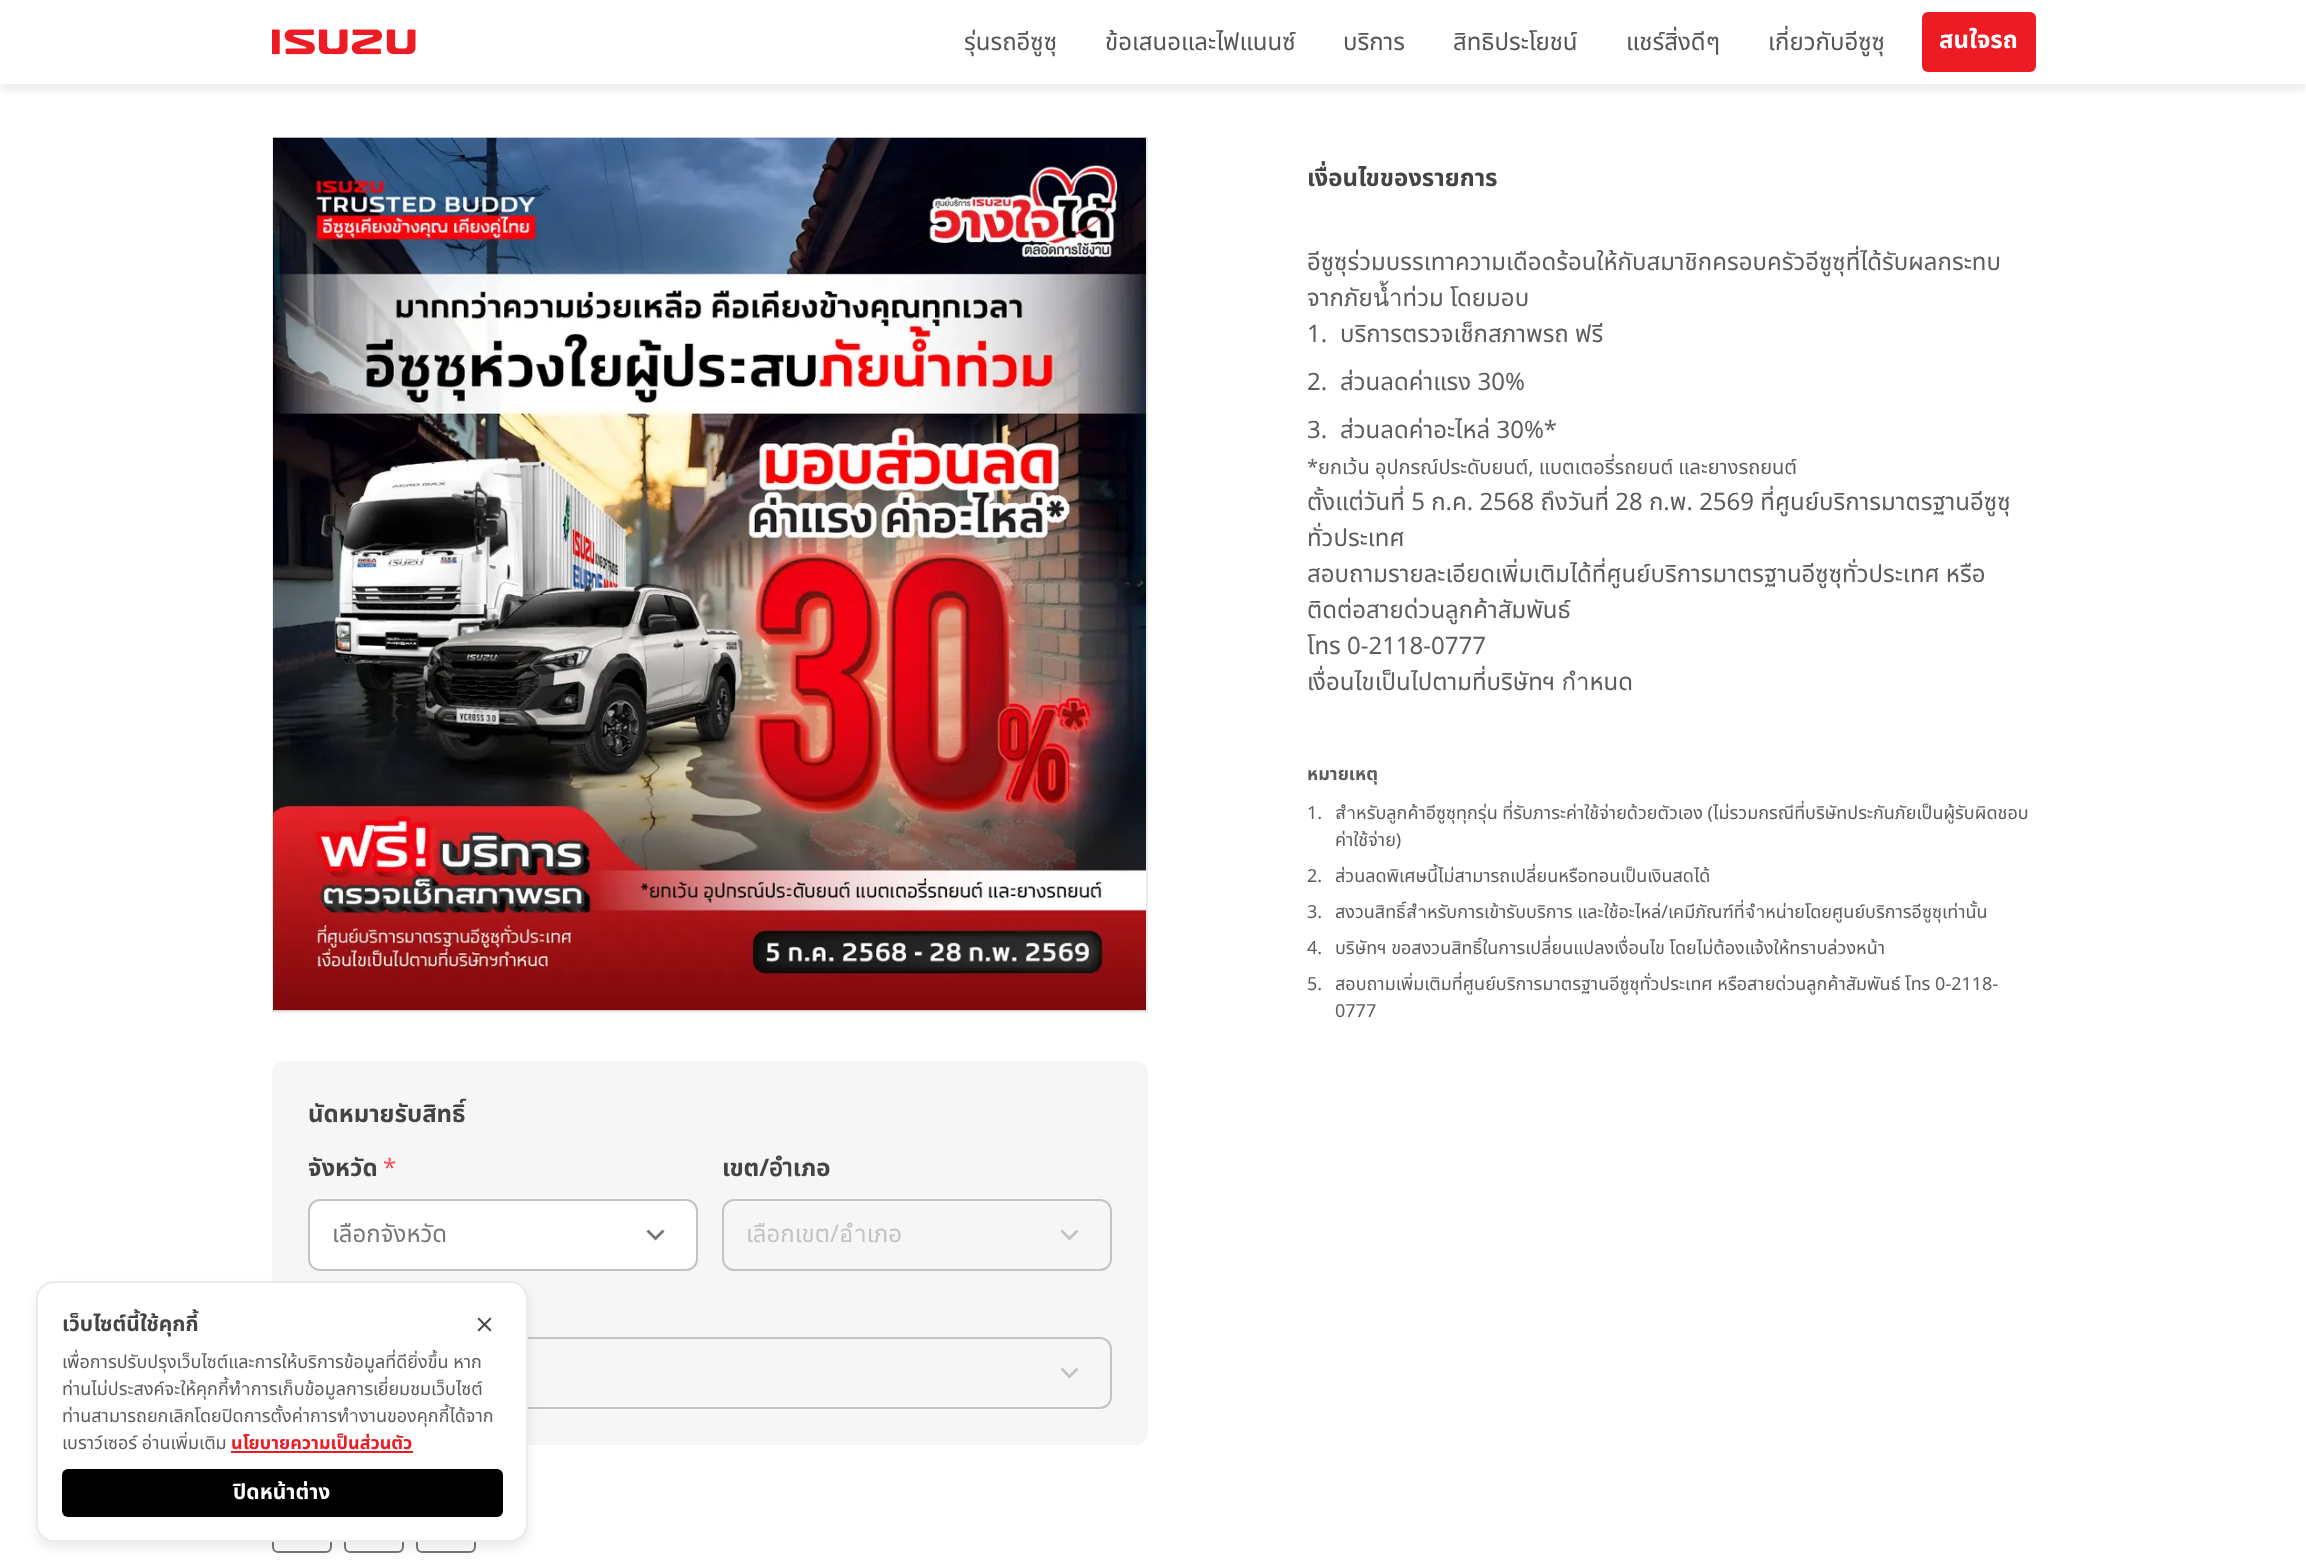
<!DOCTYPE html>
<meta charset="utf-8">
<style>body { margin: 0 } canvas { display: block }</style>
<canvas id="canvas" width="2306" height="1565"></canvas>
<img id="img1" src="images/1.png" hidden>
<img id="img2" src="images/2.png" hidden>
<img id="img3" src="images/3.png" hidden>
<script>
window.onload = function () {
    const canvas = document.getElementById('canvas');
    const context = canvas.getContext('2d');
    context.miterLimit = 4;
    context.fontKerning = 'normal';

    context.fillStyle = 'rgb(255, 255, 255)';
    context.fillRect(0, 0, 2306, 1565);
    context.save();
    context.beginPath();
    context.rect(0, 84, 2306, 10);
    context.clip();
    context.fillStyle = 'rgba(0, 0, 0, 0.08)';
    context.filter = 'blur(6px)';
    context.beginPath();
    context.rect(0, 6, 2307, 84);
    context.fill();
    context.filter = 'none';
    context.restore();
    context.drawImage(document.getElementById('img1'), 272, 29, 144, 26);
    context.fillStyle = 'rgb(237, 28, 36)';
    context.beginPath();
    context.roundRect(1922, 12, 114, 60, 6);
    context.fill();
    context.strokeStyle = 'rgb(235, 235, 235)';
    context.lineWidth = 2;
    context.strokeRect(273, 138, 874, 874);
    context.drawImage(document.getElementById('img2'), 273, 137, 873, 874);
    context.fillStyle = 'rgb(246, 246, 246)';
    context.beginPath();
    context.roundRect(272, 1061, 876, 384, 12);
    context.fill();
    context.fillStyle = 'rgb(255, 255, 255)';
    context.beginPath();
    context.roundRect(309, 1200, 388, 70, 11);
    context.fill();
    context.strokeStyle = 'rgb(195, 195, 195)';
    context.stroke();
    context.fillStyle = 'rgb(119, 119, 119)';
    context.beginPath();
    context.moveTo(662.5, 1229.5);
    context.lineTo(655.5, 1236.5);
    context.lineTo(648.5, 1229.5);
    context.lineTo(646.5, 1231.5);
    context.lineTo(655.5, 1240.5);
    context.lineTo(664.5, 1231.5);
    context.closePath();
    context.fill();
    context.beginPath();
    context.roundRect(723, 1200, 388, 70, 11);
    context.stroke();
    context.fillStyle = 'rgb(195, 195, 195)';
    context.beginPath();
    context.moveTo(1076.5, 1229.5);
    context.lineTo(1069.5, 1236.5);
    context.lineTo(1062.5, 1229.5);
    context.lineTo(1060.5, 1231.5);
    context.lineTo(1069.5, 1240.5);
    context.lineTo(1078.5, 1231.5);
    context.closePath();
    context.fill();
    context.beginPath();
    context.roundRect(309, 1338, 802, 70, 11);
    context.stroke();
    context.beginPath();
    context.moveTo(1076.5, 1367.5);
    context.lineTo(1069.5, 1374.5);
    context.lineTo(1062.5, 1367.5);
    context.lineTo(1060.5, 1369.5);
    context.lineTo(1069.5, 1378.5);
    context.lineTo(1078.5, 1369.5);
    context.closePath();
    context.fill();
    context.beginPath();
    context.roundRect(273, 1494, 58, 58, 5);
    context.strokeStyle = 'rgb(119, 119, 119)';
    context.stroke();
    context.beginPath();
    context.roundRect(345, 1494, 58, 58, 5);
    context.stroke();
    context.beginPath();
    context.roundRect(417, 1494, 58, 58, 5);
    context.stroke();
    context.fillStyle = 'rgba(0, 0, 0, 0.08)';
    context.filter = 'blur(6px)';
    context.beginPath();
    context.roundRect(36, 1287, 492, 261, 18);
    context.fill();
    context.filter = 'none';
    context.fillStyle = 'rgb(255, 255, 255)';
    context.beginPath();
    context.roundRect(37, 1282, 490, 259, 17);
    context.fill();
    context.strokeStyle = 'rgb(235, 235, 235)';
    context.stroke();
    context.drawImage(document.getElementById('img3'), 477, 1317, 15, 15);
    context.fillStyle = 'rgb(237, 28, 36)';
    context.fillRect(231, 1451, 182, 2);
    context.fillStyle = 'rgb(0, 0, 0)';
    context.beginPath();
    context.roundRect(62, 1469, 441, 48, 6);
    context.fill();
    context.font = '24px Noto Sans Thai';
    context.fillStyle = 'rgb(85, 85, 85)';
    context.fillText('รุ่นรถอีซูซุ', 964, 50);
    context.fillText('ข้อเสนอและไฟแนนซ์', 1105, 50);
    context.fillText('บริการ', 1343, 50);
    context.fillText('สิทธิประโยชน์', 1453, 50);
    context.fillText('แชร์สิ่งดีๆ', 1626, 50);
    context.fillText('เกี่ยวกับอีซูซุ', 1768, 50);
    context.font = 'bold 24px Noto Sans Thai';
    context.fillStyle = 'rgb(255, 255, 255)';
    context.fillText('สนใจรถ', 1939, 48);
    context.save();
    context.beginPath();
    context.roundRect(1308, 137, 728, 912, 6);
    context.clip();
    context.fillStyle = 'rgb(68, 68, 68)';
    context.fillText('เงื่อนไขของรายการ', 1307, 186);
    context.font = '24px Noto Sans Thai';
    context.fillStyle = 'rgb(93, 93, 93)';
    context.fillText('อีซูซุร่วมบรรเทาความเดือดร้อนให้กับสมาชิกครอบครัวอีซูซุที่ได้รับผลกระทบ', 1307, 270);
    context.restore();
    context.font = '24px Noto Sans Thai';
    context.fillStyle = 'rgb(93, 93, 93)';
    context.fillText('จากภัยน้ำท่วม โดยมอบ', 1307, 306);
    context.fillText('1.', 1307, 342);
    context.fillText('บริการตรวจเช็กสภาพรถ ฟรี', 1340, 342);
    context.fillText('2.', 1307, 390);
    context.fillText('ส่วนลดค่าแรง 30%', 1340, 390);
    context.fillText('3.', 1307, 438);
    context.fillText('ส่วนลดค่าอะไหล่ 30%*', 1340, 438);
    context.font = '20px Noto Sans Thai';
    context.fillText('*ยกเว้น อุปกรณ์ประดับยนต์, แบตเตอรี่รถยนต์ และยางรถยนต์', 1307, 474);
    context.save();
    context.beginPath();
    context.roundRect(1308, 137, 728, 912, 6);
    context.clip();
    context.font = '24px Noto Sans Thai';
    context.fillText('ตั้งแต่วันที่ 5 ก.ค. 2568 ถึงวันที่ 28 ก.พ. 2569 ที่ศูนย์บริการมาตรฐานอีซูซุ', 1307, 510);
    context.fillText('ทั่วประเทศ', 1307, 546);
    context.restore();
    context.font = '24px Noto Sans Thai';
    context.fillText('สอบถามรายละเอียดเพิ่มเติมได้ที่ศูนย์บริการมาตรฐานอีซูซุทั่วประเทศ หรือ', 1307, 582);
    context.save();
    context.beginPath();
    context.roundRect(1308, 137, 728, 912, 6);
    context.clip();
    context.fillText('ติดต่อสายด่วนลูกค้าสัมพันธ์', 1307, 618);
    context.restore();
    context.fillText('โทร 0-2118-0777', 1307, 654);
    context.save();
    context.beginPath();
    context.roundRect(1308, 137, 728, 912, 6);
    context.clip();
    context.fillText('เงื่อนไขเป็นไปตามที่บริษัทฯ กำหนด', 1307, 690);
    context.restore();
    context.font = 'bold 18px Noto Sans Thai';
    context.fillText('หมายเหตุ', 1307, 780);
    context.font = '18px Noto Sans Thai';
    context.fillText('1.', 1307, 819);
    context.fillText('สำหรับลูกค้าอีซูซุทุกรุ่น ที่รับภาระค่าใช้จ่ายด้วยตัวเอง (ไม่รวมกรณีที่บริษัทประกันภัยเป็นผู้รับผิดชอบ', 1335, 819);
    context.fillText('ค่าใช้จ่าย)', 1335, 846);
    context.fillText('2.', 1307, 882);
    context.fillText('ส่วนลดพิเศษนี้ไม่สามารถเปลี่ยนหรือทอนเป็นเงินสดได้', 1335, 882);
    context.fillText('3.', 1307, 918);
    context.fillText('สงวนสิทธิ์สำหรับการเข้ารับบริการ และใช้อะไหล่/เคมีภัณฑ์ที่จำหน่ายโดยศูนย์บริการอีซูซุเท่านั้น', 1335, 918);
    context.fillText('4.', 1307, 954);
    context.fillText('บริษัทฯ ขอสงวนสิทธิ์ในการเปลี่ยนแปลงเงื่อนไข โดยไม่ต้องแจ้งให้ทราบล่วงหน้า', 1335, 954);
    context.fillText('5.', 1307, 990);
    context.fillText('สอบถามเพิ่มเติมที่ศูนย์บริการมาตรฐานอีซูซุทั่วประเทศ หรือสายด่วนลูกค้าสัมพันธ์ โทร 0-2118-', 1335, 990);
    context.fillText('0777', 1335, 1017);
    context.font = 'bold 24px Noto Sans Thai';
    context.fillStyle = 'rgb(68, 68, 68)';
    context.fillText('นัดหมายรับสิทธิ์', 308, 1122);
    context.fillText('จังหวัด', 308, 1176);
    context.font = '24px Noto Sans Thai';
    context.fillStyle = 'rgb(251, 75, 83)';
    context.fillText('*', 383, 1176);
    context.save();
    context.beginPath();
    context.rect(332, 1199, 294, 72);
    context.clip();
    context.fillStyle = 'rgb(119, 119, 119)';
    context.fillText('เลือกจังหวัด', 332, 1242);
    context.restore();
    context.font = 'bold 24px Noto Sans Thai';
    context.fillStyle = 'rgb(68, 68, 68)';
    context.fillText('เขต/อำเภอ', 722, 1176);
    context.save();
    context.beginPath();
    context.rect(746, 1199, 294, 72);
    context.clip();
    context.font = '24px Noto Sans Thai';
    context.fillStyle = 'rgb(195, 195, 195)';
    context.fillText('เลือกเขต/อำเภอ', 746, 1242);
    context.restore();
    context.font = 'bold 21px Noto Sans Thai';
    context.fillText('เว็บไซต์นี้ใช้คุกกี้', 62, 1331);
    context.font = '18px Noto Sans Thai';
    context.fillStyle = 'rgb(93, 93, 93)';
    context.fillText('เพื่อการปรับปรุงเว็บไซต์และการให้บริการข้อมูลที่ดียิ่งขึ้น หาก', 62, 1368);
    context.fillText('ท่านไม่ประสงค์จะให้คุกกี้ทำการเก็บข้อมูลการเยี่ยมชมเว็บไซต์', 62, 1395);
    context.fillText('ท่านสามารถยกเลิกโดยปิดการตั้งค่าการทำงานของคุกกี้ได้จาก', 62, 1422);
    context.fillText('เบราว์เซอร์ อ่านเพิ่มเติม', 62, 1449);
    context.font = 'bold 18px Noto Sans Thai';
    context.fillStyle = 'rgb(237, 28, 36)';
    context.fillText('นโยบายความเป็นส่วนตัว', 231, 1449);
    context.font = 'bold 21px Noto Sans Thai';
    context.fillStyle = 'rgb(255, 255, 255)';
    context.fillText('ปิดหน้าต่าง', 233, 1499);
};
</script>
